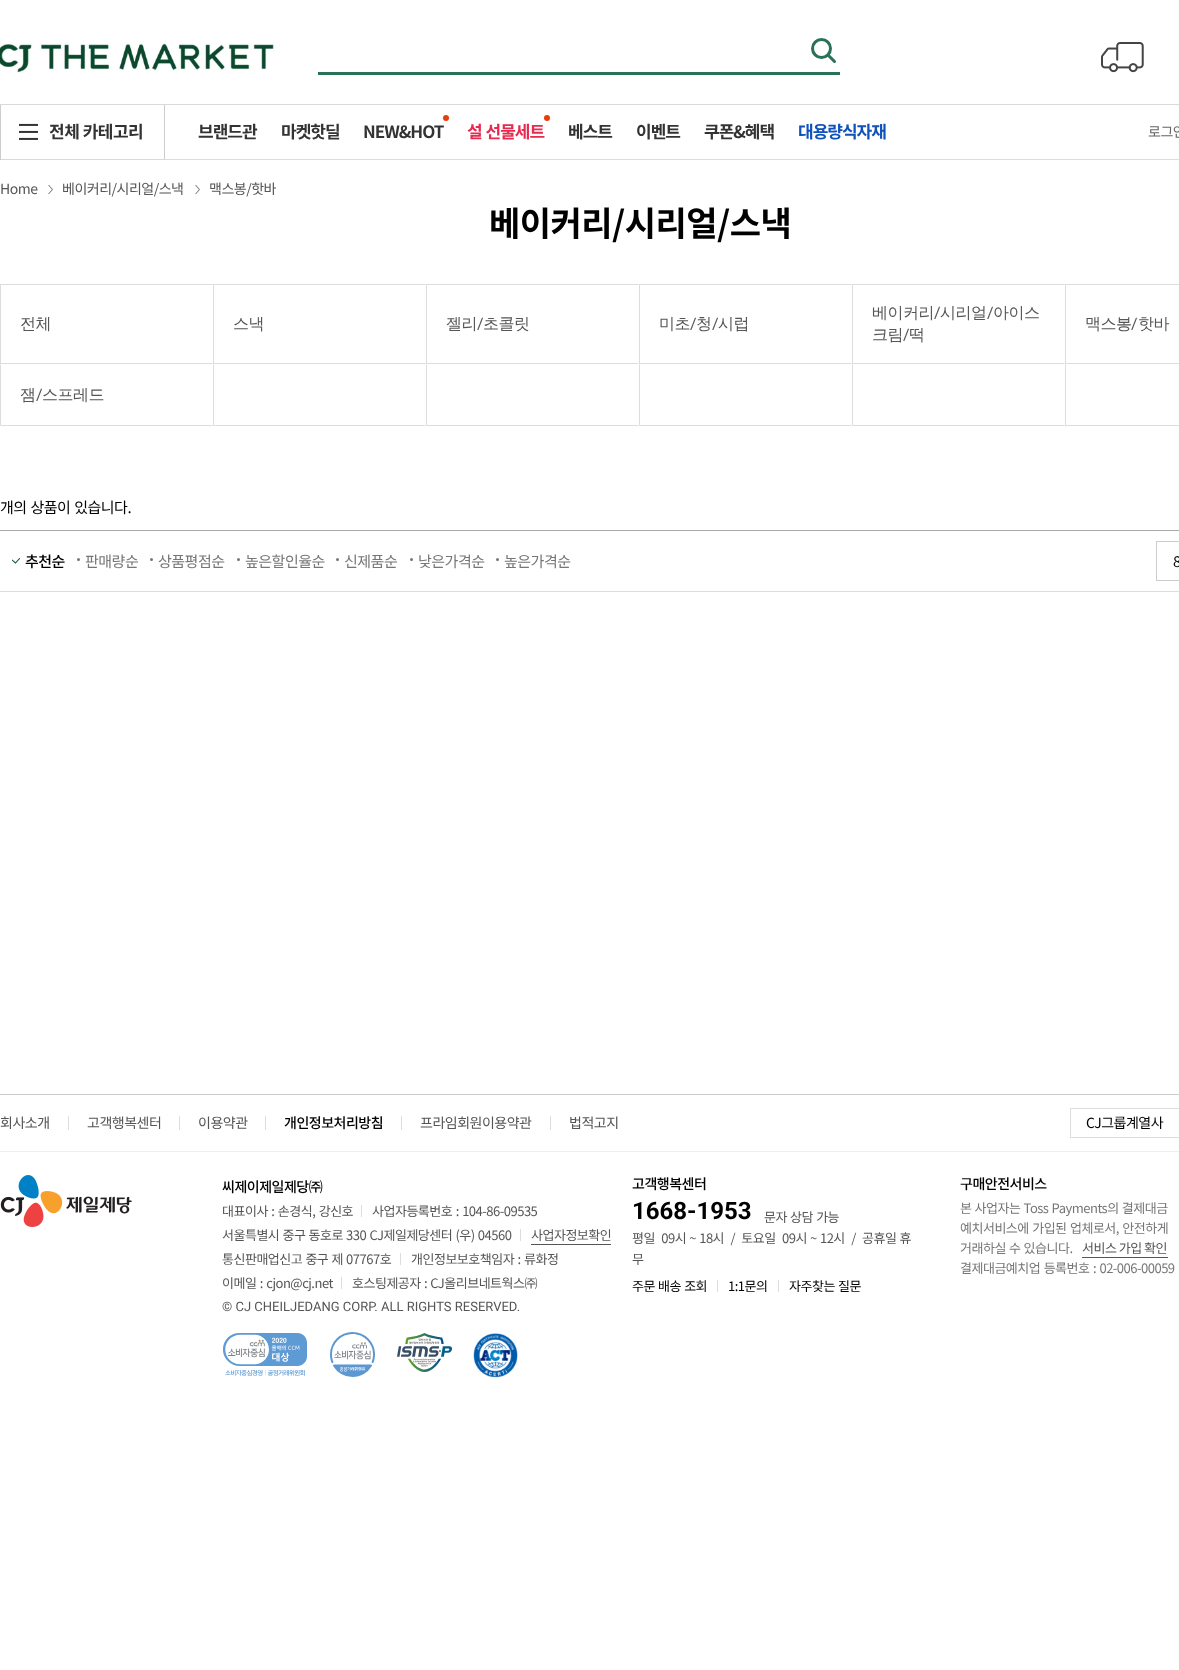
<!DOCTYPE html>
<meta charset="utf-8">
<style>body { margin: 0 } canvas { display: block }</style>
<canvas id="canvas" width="1179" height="1670"></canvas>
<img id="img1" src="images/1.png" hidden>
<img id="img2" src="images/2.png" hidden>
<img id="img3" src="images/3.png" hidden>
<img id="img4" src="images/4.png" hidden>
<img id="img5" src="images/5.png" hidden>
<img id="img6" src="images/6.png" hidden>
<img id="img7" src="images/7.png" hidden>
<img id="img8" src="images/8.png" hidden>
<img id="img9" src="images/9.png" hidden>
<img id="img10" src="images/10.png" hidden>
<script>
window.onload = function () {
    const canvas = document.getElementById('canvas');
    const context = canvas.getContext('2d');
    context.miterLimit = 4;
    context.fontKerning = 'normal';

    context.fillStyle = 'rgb(255, 255, 255)';
    context.fillRect(0, 0, 1179, 1670);
    context.fillStyle = 'rgb(217, 217, 217)';
    context.fillRect(0, 104, 1179, 1);
    context.drawImage(document.getElementById('img1'), 0, 43, 275, 30);
    context.beginPath();
    context.moveTo(828.5, 55.5);
    context.lineTo(834.5, 61.5);
    context.strokeStyle = 'rgb(42, 113, 90)';
    context.lineWidth = 3;
    context.lineCap = 'round';
    context.stroke();
    context.beginPath();
    context.arc(821.5, 48.5, 9, 0, 2 * Math.PI);
    context.stroke();
    context.fillStyle = 'rgb(42, 113, 90)';
    context.fillRect(318, 72, 522, 3);
    context.drawImage(document.getElementById('img2'), 1101, 42, 43, 31);
    context.fillStyle = 'rgb(221, 221, 221)';
    context.fillRect(165, 159, 1014, 1);
    context.fillStyle = 'rgb(205, 205, 205)';
    context.fillRect(164, 105, 1, 55);
    context.fillStyle = 'rgb(217, 217, 217)';
    context.fillRect(0, 159, 165, 1);
    context.fillStyle = 'rgb(205, 205, 205)';
    context.fillRect(0, 105, 1, 55);
    context.drawImage(document.getElementById('img3'), 19, 123, 19, 17);
    context.fillStyle = 'rgb(232, 62, 12)';
    context.beginPath();
    context.arc(446, 118, 3, 0, 2 * Math.PI);
    context.fill();
    context.beginPath();
    context.arc(547, 118, 3, 0, 2 * Math.PI);
    context.fill();
    context.drawImage(document.getElementById('img4'), 48, 185, 5, 9);
    context.drawImage(document.getElementById('img4'), 195, 185, 5, 9);
    context.fillStyle = 'rgb(221, 221, 221)';
    context.beginPath();
    context.moveTo(0, 284);
    context.lineTo(213, 284);
    context.lineTo(212, 285);
    context.lineTo(1, 285);
    context.closePath();
    context.fill();
    context.beginPath();
    context.moveTo(213, 364);
    context.lineTo(0, 364);
    context.lineTo(1, 363);
    context.lineTo(212, 363);
    context.closePath();
    context.fill();
    context.fillRect(0, 284, 1, 80);
    context.beginPath();
    context.moveTo(213, 284);
    context.lineTo(426, 284);
    context.lineTo(425, 285);
    context.lineTo(214, 285);
    context.closePath();
    context.fill();
    context.beginPath();
    context.moveTo(426, 364);
    context.lineTo(213, 364);
    context.lineTo(214, 363);
    context.lineTo(425, 363);
    context.closePath();
    context.fill();
    context.fillRect(213, 284, 1, 80);
    context.beginPath();
    context.moveTo(426, 284);
    context.lineTo(639, 284);
    context.lineTo(638, 285);
    context.lineTo(427, 285);
    context.closePath();
    context.fill();
    context.beginPath();
    context.moveTo(639, 364);
    context.lineTo(426, 364);
    context.lineTo(427, 363);
    context.lineTo(638, 363);
    context.closePath();
    context.fill();
    context.fillRect(426, 284, 1, 80);
    context.beginPath();
    context.moveTo(639, 284);
    context.lineTo(852, 284);
    context.lineTo(851, 285);
    context.lineTo(640, 285);
    context.closePath();
    context.fill();
    context.beginPath();
    context.moveTo(852, 364);
    context.lineTo(639, 364);
    context.lineTo(640, 363);
    context.lineTo(851, 363);
    context.closePath();
    context.fill();
    context.fillRect(639, 284, 1, 80);
    context.beginPath();
    context.moveTo(852, 284);
    context.lineTo(1065, 284);
    context.lineTo(1064, 285);
    context.lineTo(853, 285);
    context.closePath();
    context.fill();
    context.beginPath();
    context.moveTo(1065, 364);
    context.lineTo(852, 364);
    context.lineTo(853, 363);
    context.lineTo(1064, 363);
    context.closePath();
    context.fill();
    context.fillRect(852, 284, 1, 80);
    context.strokeStyle = 'rgb(221, 221, 221)';
    context.lineWidth = 1;
    context.strokeRect(1065.5, 284.5, 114, 79);
    context.beginPath();
    context.moveTo(213, 426);
    context.lineTo(0, 426);
    context.lineTo(1, 425);
    context.lineTo(212, 425);
    context.closePath();
    context.fill();
    context.beginPath();
    context.moveTo(0, 426);
    context.lineTo(0, 364);
    context.lineTo(1, 365);
    context.lineTo(1, 425);
    context.closePath();
    context.fill();
    context.beginPath();
    context.moveTo(426, 426);
    context.lineTo(213, 426);
    context.lineTo(214, 425);
    context.lineTo(425, 425);
    context.closePath();
    context.fill();
    context.beginPath();
    context.moveTo(213, 426);
    context.lineTo(213, 364);
    context.lineTo(214, 365);
    context.lineTo(214, 425);
    context.closePath();
    context.fill();
    context.beginPath();
    context.moveTo(639, 426);
    context.lineTo(426, 426);
    context.lineTo(427, 425);
    context.lineTo(638, 425);
    context.closePath();
    context.fill();
    context.beginPath();
    context.moveTo(426, 426);
    context.lineTo(426, 364);
    context.lineTo(427, 365);
    context.lineTo(427, 425);
    context.closePath();
    context.fill();
    context.beginPath();
    context.moveTo(852, 426);
    context.lineTo(639, 426);
    context.lineTo(640, 425);
    context.lineTo(851, 425);
    context.closePath();
    context.fill();
    context.beginPath();
    context.moveTo(639, 426);
    context.lineTo(639, 364);
    context.lineTo(640, 365);
    context.lineTo(640, 425);
    context.closePath();
    context.fill();
    context.beginPath();
    context.moveTo(1065, 426);
    context.lineTo(852, 426);
    context.lineTo(853, 425);
    context.lineTo(1064, 425);
    context.closePath();
    context.fill();
    context.beginPath();
    context.moveTo(852, 426);
    context.lineTo(852, 364);
    context.lineTo(853, 365);
    context.lineTo(853, 425);
    context.closePath();
    context.fill();
    context.fillRect(1065, 425, 114, 1);
    context.beginPath();
    context.moveTo(1065, 426);
    context.lineTo(1065, 364);
    context.lineTo(1066, 365);
    context.lineTo(1066, 425);
    context.closePath();
    context.fill();
    context.fillStyle = 'rgb(170, 170, 170)';
    context.fillRect(0, 530, 1179, 1);
    context.fillStyle = 'rgb(221, 221, 221)';
    context.fillRect(0, 591, 1179, 1);
    context.drawImage(document.getElementById('img5'), 12, 558, 8, 6);
    context.fillStyle = 'rgb(118, 118, 118)';
    context.beginPath();
    context.arc(78.5, 559.5, 1.5, 0, 2 * Math.PI);
    context.fill();
    context.beginPath();
    context.arc(151.5, 559.5, 1.5, 0, 2 * Math.PI);
    context.fill();
    context.beginPath();
    context.arc(238.5, 559.5, 1.5, 0, 2 * Math.PI);
    context.fill();
    context.beginPath();
    context.arc(337.5, 559.5, 1.5, 0, 2 * Math.PI);
    context.fill();
    context.beginPath();
    context.arc(411.5, 559.5, 1.5, 0, 2 * Math.PI);
    context.fill();
    context.beginPath();
    context.arc(497.5, 559.5, 1.5, 0, 2 * Math.PI);
    context.fill();
    context.strokeStyle = 'rgb(204, 204, 204)';
    context.strokeRect(1156.5, 541.5, 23, 39);
    context.fillStyle = 'rgb(204, 204, 204)';
    context.fillRect(0, 1094, 1179, 1);
    context.fillStyle = 'rgb(238, 238, 238)';
    context.fillRect(0, 1151, 1179, 1);
    context.fillStyle = 'rgb(221, 221, 221)';
    context.fillRect(68, 1116, 1, 14);
    context.fillRect(179, 1116, 1, 14);
    context.fillRect(265, 1116, 1, 14);
    context.fillRect(401, 1116, 1, 14);
    context.fillRect(550, 1116, 1, 14);
    context.strokeStyle = 'rgb(221, 221, 221)';
    context.strokeRect(1070.5, 1108.5, 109, 29);
    context.drawImage(document.getElementById('img6'), 0, 1175, 132, 52);
    context.fillRect(361, 1205, 1, 12);
    context.fillRect(520, 1229, 1, 12);
    context.fillStyle = 'rgb(85, 85, 85)';
    context.fillRect(531, 1244, 80, 1);
    context.fillStyle = 'rgb(221, 221, 221)';
    context.fillRect(400, 1253, 1, 12);
    context.fillRect(341, 1277, 1, 12);
    context.drawImage(document.getElementById('img7'), 223, 1333, 84, 43);
    context.drawImage(document.getElementById('img8'), 330, 1332, 45, 45);
    context.drawImage(document.getElementById('img9'), 397, 1333, 55, 39);
    context.drawImage(document.getElementById('img10'), 473, 1333, 45, 45);
    context.fillRect(717, 1280, 1, 12);
    context.fillRect(778, 1280, 1, 12);
    context.fillStyle = 'rgb(85, 85, 85)';
    context.fillRect(1082, 1257, 86, 1);
    context.letterSpacing = '-0.5px';
    context.font = 'bold 17px Noto Sans KR';
    context.fillStyle = 'rgb(51, 51, 51)';
    context.fillText('전체 카테고리', 49, 138);
    context.letterSpacing = '-1px';
    context.fillText('브랜드관', 198, 138);
    context.fillText('마켓핫딜', 281, 138);
    context.fillText('NEW&HOT', 363, 138);
    context.wordSpacing = '1px';
    context.fillStyle = 'rgb(231, 42, 80)';
    context.fillText('설 선물세트', 467, 138);
    context.wordSpacing = '0px';
    context.fillStyle = 'rgb(51, 51, 51)';
    context.fillText('베스트', 568, 138);
    context.fillText('이벤트', 636, 138);
    context.fillText('쿠폰&혜택', 704, 138);
    context.fillStyle = 'rgb(15, 82, 186)';
    context.fillText('대용량식자재', 798, 138);
    context.letterSpacing = '-0.5px';
    context.font = '14px Noto Sans KR';
    context.fillStyle = 'rgb(102, 102, 102)';
    context.fillText('로그인', 1148, 137);
    context.fillStyle = 'rgb(85, 85, 85)';
    context.fillText('Home', 0, 194);
    context.fillText('베이커리/시리얼/스낵', 62, 194);
    context.fillText('맥스봉/핫바', 209, 194);
    context.font = 'bold 34px Noto Sans KR';
    context.fillStyle = 'rgb(0, 0, 0)';
    context.fillText('베이커리/시리얼/스낵', 489, 236);
    context.font = '500 16px WenQuanYi Zen Hei';
    context.fillStyle = 'rgb(85, 85, 85)';
    context.fillText('전체', 20, 329);
    context.fillText('스낵', 233, 329);
    context.fillText('젤리', 446, 329);
    context.font = '16px Roboto';
    context.fillText('/', 477, 329);
    context.font = '500 16px WenQuanYi Zen Hei';
    context.fillText('초콜릿', 483, 329);
    context.fillText('미초', 659, 329);
    context.font = '16px Roboto';
    context.fillText('/', 690, 329);
    context.font = '500 16px WenQuanYi Zen Hei';
    context.fillText('청', 696, 329);
    context.font = '16px Roboto';
    context.fillText('/', 712, 329);
    context.font = '500 16px WenQuanYi Zen Hei';
    context.fillText('시럽', 718, 329);
    context.fillText('베이커리', 872, 318);
    context.font = '16px Roboto';
    context.fillText('/', 934, 318);
    context.font = '500 16px WenQuanYi Zen Hei';
    context.fillText('시리얼', 940, 318);
    context.font = '16px Roboto';
    context.fillText('/', 987, 318);
    context.font = '500 16px WenQuanYi Zen Hei';
    context.fillText('아이스', 993, 318);
    context.fillText('크림', 872, 340);
    context.font = '16px Roboto';
    context.fillText('/', 903, 340);
    context.font = '500 16px WenQuanYi Zen Hei';
    context.fillText('떡', 909, 340);
    context.fillText('맥스봉', 1085, 329);
    context.font = '16px Roboto';
    context.fillText('/', 1131, 329);
    context.font = '500 16px WenQuanYi Zen Hei';
    context.fillText('핫바', 1138, 329);
    context.fillText('잼', 20, 400);
    context.font = '16px Roboto';
    context.fillText('/', 36, 400);
    context.font = '500 16px WenQuanYi Zen Hei';
    context.fillText('스프레드', 42, 400);
    context.wordSpacing = '1px';
    context.font = '15px Noto Sans KR';
    context.fillStyle = 'rgb(0, 0, 0)';
    context.fillText('개의 상품이 있습니다.', 0, 513);
    context.wordSpacing = '0px';
    context.font = '500 15px Noto Sans KR';
    context.fillText('추천순', 25, 567);
    context.font = '15px Noto Sans KR';
    context.fillStyle = 'rgb(118, 118, 118)';
    context.fillText('판매량순', 85, 567);
    context.fillText('상품평점순', 158, 567);
    context.fillText('높은할인율순', 245, 567);
    context.fillText('신제품순', 344, 567);
    context.fillText('낮은가격순', 418, 567);
    context.fillText('높은가격순', 504, 567);
    context.fillStyle = 'rgb(0, 0, 0)';
    context.fillText('8', 1173, 567);
    context.font = '14px Noto Sans KR';
    context.fillStyle = 'rgb(85, 85, 85)';
    context.fillText('회사소개', 0, 1128);
    context.fillText('고객행복센터', 87, 1128);
    context.fillText('이용약관', 198, 1128);
    context.font = '500 14px Noto Sans KR';
    context.fillStyle = 'rgb(0, 0, 0)';
    context.fillText('개인정보처리방침', 284, 1128);
    context.font = '14px Noto Sans KR';
    context.fillStyle = 'rgb(85, 85, 85)';
    context.fillText('프라임회원이용약관', 420, 1128);
    context.fillText('법적고지', 569, 1128);
    context.fillStyle = 'rgb(0, 0, 0)';
    context.fillText('CJ그룹계열사', 1086, 1128);
    context.font = '500 14px Noto Sans KR';
    context.fillText('씨제이제일제당㈜', 222, 1192);
    context.wordSpacing = '1px';
    context.font = '13px Noto Sans KR';
    context.fillStyle = 'rgb(85, 85, 85)';
    context.fillText('대표이사 : 손경식, 강신호', 222, 1216);
    context.fillText('사업자등록번호 : 104-86-09535', 372, 1216);
    context.wordSpacing = '0.75px';
    context.fillText('서울특별시 중구 동호로 330 CJ제일제당센터 (우) 04560', 222, 1240);
    context.wordSpacing = '0px';
    context.fillText('사업자정보확인', 531, 1240);
    context.wordSpacing = '0.75px';
    context.fillText('통신판매업신고 중구 제 07767호', 222, 1264);
    context.wordSpacing = '1px';
    context.fillText('개인정보보호책임자 : 류화정', 411, 1264);
    context.fillText('이메일 : cjon@cj.net', 222, 1288);
    context.wordSpacing = '0.75px';
    context.fillText('호스팅제공자 : CJ올리브네트웍스㈜', 352, 1288);
    context.letterSpacing = '0px';
    context.wordSpacing = '0px';
    context.font = '13px Roboto';
    context.fillText('© CJ CHEILJEDANG CORP. ALL RIGHTS RESERVED.', 222, 1311);
    context.letterSpacing = '-0.5px';
    context.font = '500 14px Noto Sans KR';
    context.fillStyle = 'rgb(0, 0, 0)';
    context.fillText('고객행복센터', 632, 1189);
    context.letterSpacing = '0px';
    context.font = 'bold 24px Roboto';
    context.fillText('1668-1953', 632, 1219);
    context.letterSpacing = '-0.5px';
    context.wordSpacing = '0.75px';
    context.font = '13px Noto Sans KR';
    context.fillStyle = 'rgb(85, 85, 85)';
    context.fillText('문자 상담 가능', 764, 1222);
    context.fillText('평일  09시 ~ 18시  /  토요일  09시 ~ 12시  /  공휴일 휴', 632, 1243);
    context.wordSpacing = '0px';
    context.fillText('무', 632, 1264);
    context.wordSpacing = '0.75px';
    context.fillStyle = 'rgb(0, 0, 0)';
    context.fillText('주문 배송 조회', 632, 1291);
    context.wordSpacing = '0px';
    context.fillText('1:1문의', 728, 1291);
    context.wordSpacing = '0.75px';
    context.fillText('자주찾는 질문', 789, 1291);
    context.wordSpacing = '0px';
    context.font = '500 14px Noto Sans KR';
    context.fillText('구매안전서비스', 960, 1189);
    context.wordSpacing = '0.75px';
    context.font = '13px Noto Sans KR';
    context.fillStyle = 'rgb(118, 118, 118)';
    context.fillText('본 사업자는 Toss Payments의 결제대금', 960, 1213);
    context.wordSpacing = '1px';
    context.fillText('예치서비스에 가입된 업체로서, 안전하게', 960, 1233);
    context.wordSpacing = '0.75px';
    context.fillText('거래하실 수 있습니다.', 960, 1253);
    context.wordSpacing = '0px';
    context.fillStyle = 'rgb(85, 85, 85)';
    context.fillText('서비스 가입 확인', 1082, 1253);
    context.wordSpacing = '1px';
    context.fillStyle = 'rgb(118, 118, 118)';
    context.fillText('결제대금예치업 등록번호 : 02-006-00059', 960, 1273);
};
</script>
